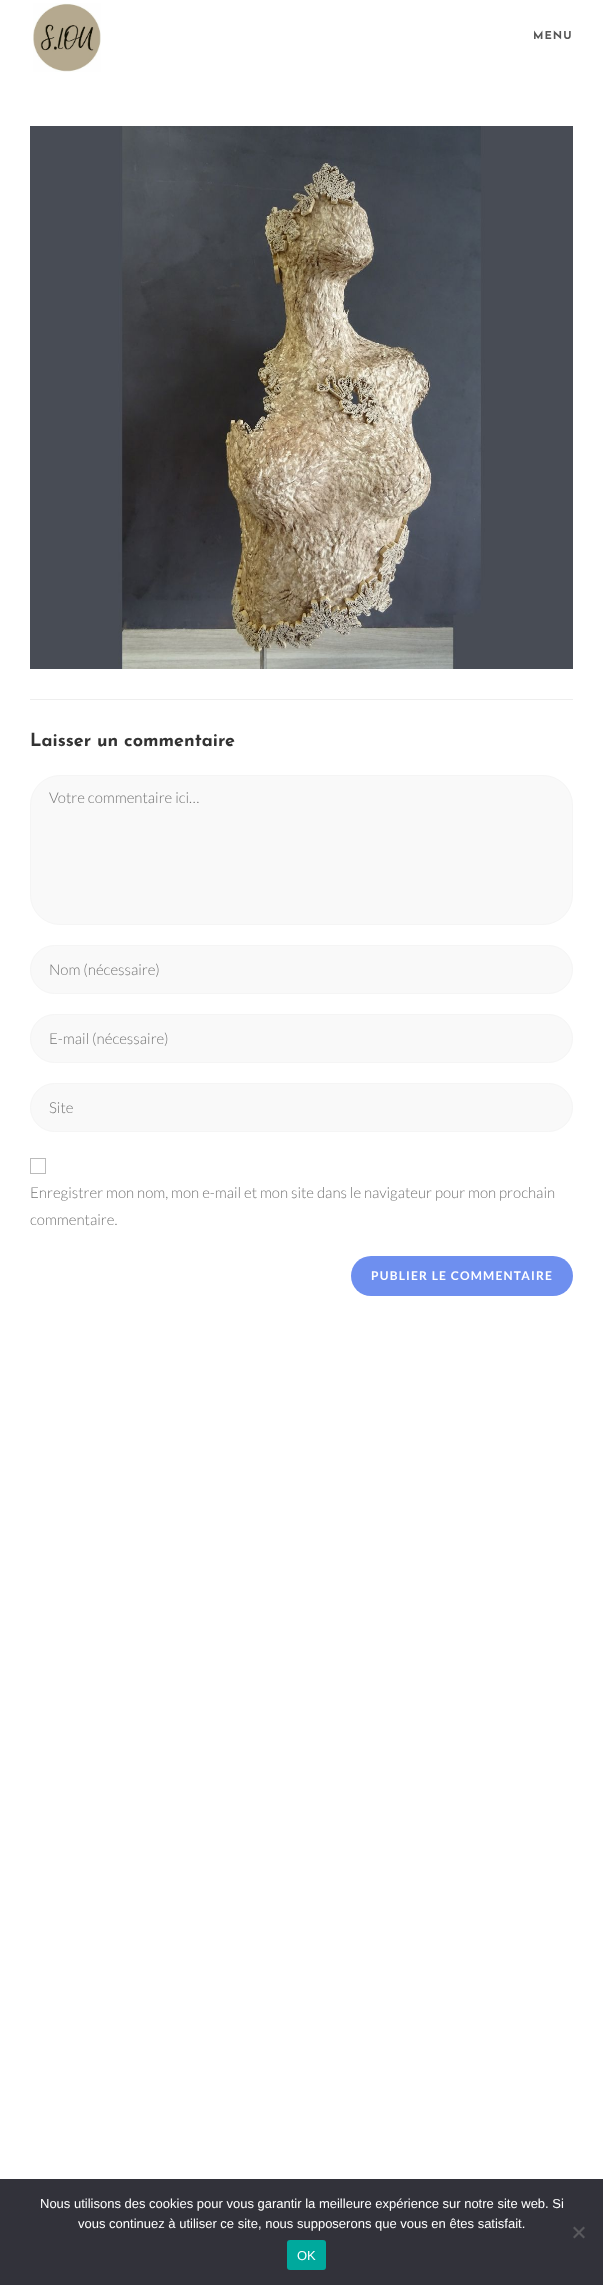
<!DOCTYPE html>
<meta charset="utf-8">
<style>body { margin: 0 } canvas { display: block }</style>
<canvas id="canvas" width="603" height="2285"></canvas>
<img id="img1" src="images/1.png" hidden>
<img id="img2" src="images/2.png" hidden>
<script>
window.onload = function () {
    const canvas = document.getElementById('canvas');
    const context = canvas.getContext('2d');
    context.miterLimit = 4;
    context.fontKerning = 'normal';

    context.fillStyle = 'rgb(255, 255, 255)';
    context.fillRect(0, 0, 603, 2285);
    context.drawImage(document.getElementById('img1'), 33, 3, 68, 69);
    context.drawImage(document.getElementById('img2'), 30, 126, 543, 543);
    context.fillStyle = 'rgb(238, 238, 238)';
    context.fillRect(30, 699, 543, 1);
    context.fillStyle = 'rgb(249, 249, 249)';
    context.beginPath();
    context.roundRect(30.5, 775.5, 542, 149, 29.5);
    context.fill();
    context.strokeStyle = 'rgb(245, 245, 245)';
    context.stroke();
    context.beginPath();
    context.roundRect(30.5, 945.5, 542, 48, 24);
    context.fill();
    context.stroke();
    context.beginPath();
    context.roundRect(30.5, 1014.5, 542, 48, 24);
    context.fill();
    context.stroke();
    context.beginPath();
    context.roundRect(30.5, 1083.5, 542, 48, 24);
    context.fill();
    context.stroke();
    context.strokeStyle = 'rgb(187, 187, 187)';
    context.strokeRect(30.5, 1158.5, 15, 15);
    context.fillStyle = 'rgb(110, 143, 239)';
    context.beginPath();
    context.roundRect(351, 1256, 222, 40, 20);
    context.fill();
    context.fillStyle = 'rgb(50, 50, 58)';
    context.fillRect(0, 2179, 603, 106);
    context.fillStyle = 'rgb(89, 89, 93)';
    context.beginPath();
    context.moveTo(583.5, 2226.5);
    context.lineTo(585, 2228);
    context.lineTo(574.5, 2238.5);
    context.lineTo(573, 2237);
    context.closePath();
    context.fill();
    context.beginPath();
    context.moveTo(573, 2228);
    context.lineTo(574.5, 2226.5);
    context.lineTo(585, 2237);
    context.lineTo(583.5, 2238.5);
    context.closePath();
    context.fill();
    context.fillStyle = 'rgb(0, 169, 157)';
    context.beginPath();
    context.roundRect(287, 2240, 39, 30, 3);
    context.fill();
    context.letterSpacing = '1px';
    context.font = 'bold 11px Josefin Sans';
    context.fillStyle = 'rgb(85, 85, 85)';
    context.fillText('MENU', 533, 39);
    context.letterSpacing = '0px';
    context.font = 'bold 18px Josefin Sans';
    context.fillStyle = 'rgb(51, 51, 51)';
    context.fillText('Laisser un commentaire', 30, 746);
    context.font = '300 15px Lato';
    context.fillStyle = 'rgb(117, 117, 117)';
    context.fillText('Votre commentaire ici…', 49, 803);
    context.fillText('Nom (nécessaire)', 49, 975);
    context.fillText('E-mail (nécessaire)', 49, 1044);
    context.fillText('Site', 49, 1113);
    context.fillText('Enregistrer mon nom, mon e-mail et mon site dans le navigateur pour mon prochain', 30, 1198);
    context.fillText('commentaire.', 30, 1225);
    context.letterSpacing = '1.2px';
    context.font = 'bold 12px Lato';
    context.fillStyle = 'rgb(255, 255, 255)';
    context.fillText('PUBLIER LE COMMENTAIRE', 371, 1280);
    context.letterSpacing = '0px';
    context.font = '13px Liberation Sans';
    context.fillText('Nous utilisons des cookies pour vous garantir la meilleure expérience sur notre site web. Si', 40, 2208);
    context.fillText('vous continuez à utiliser ce site, nous supposerons que vous en êtes satisfait.', 78, 2228);
    context.fillText('OK', 297, 2260);
};
</script>
